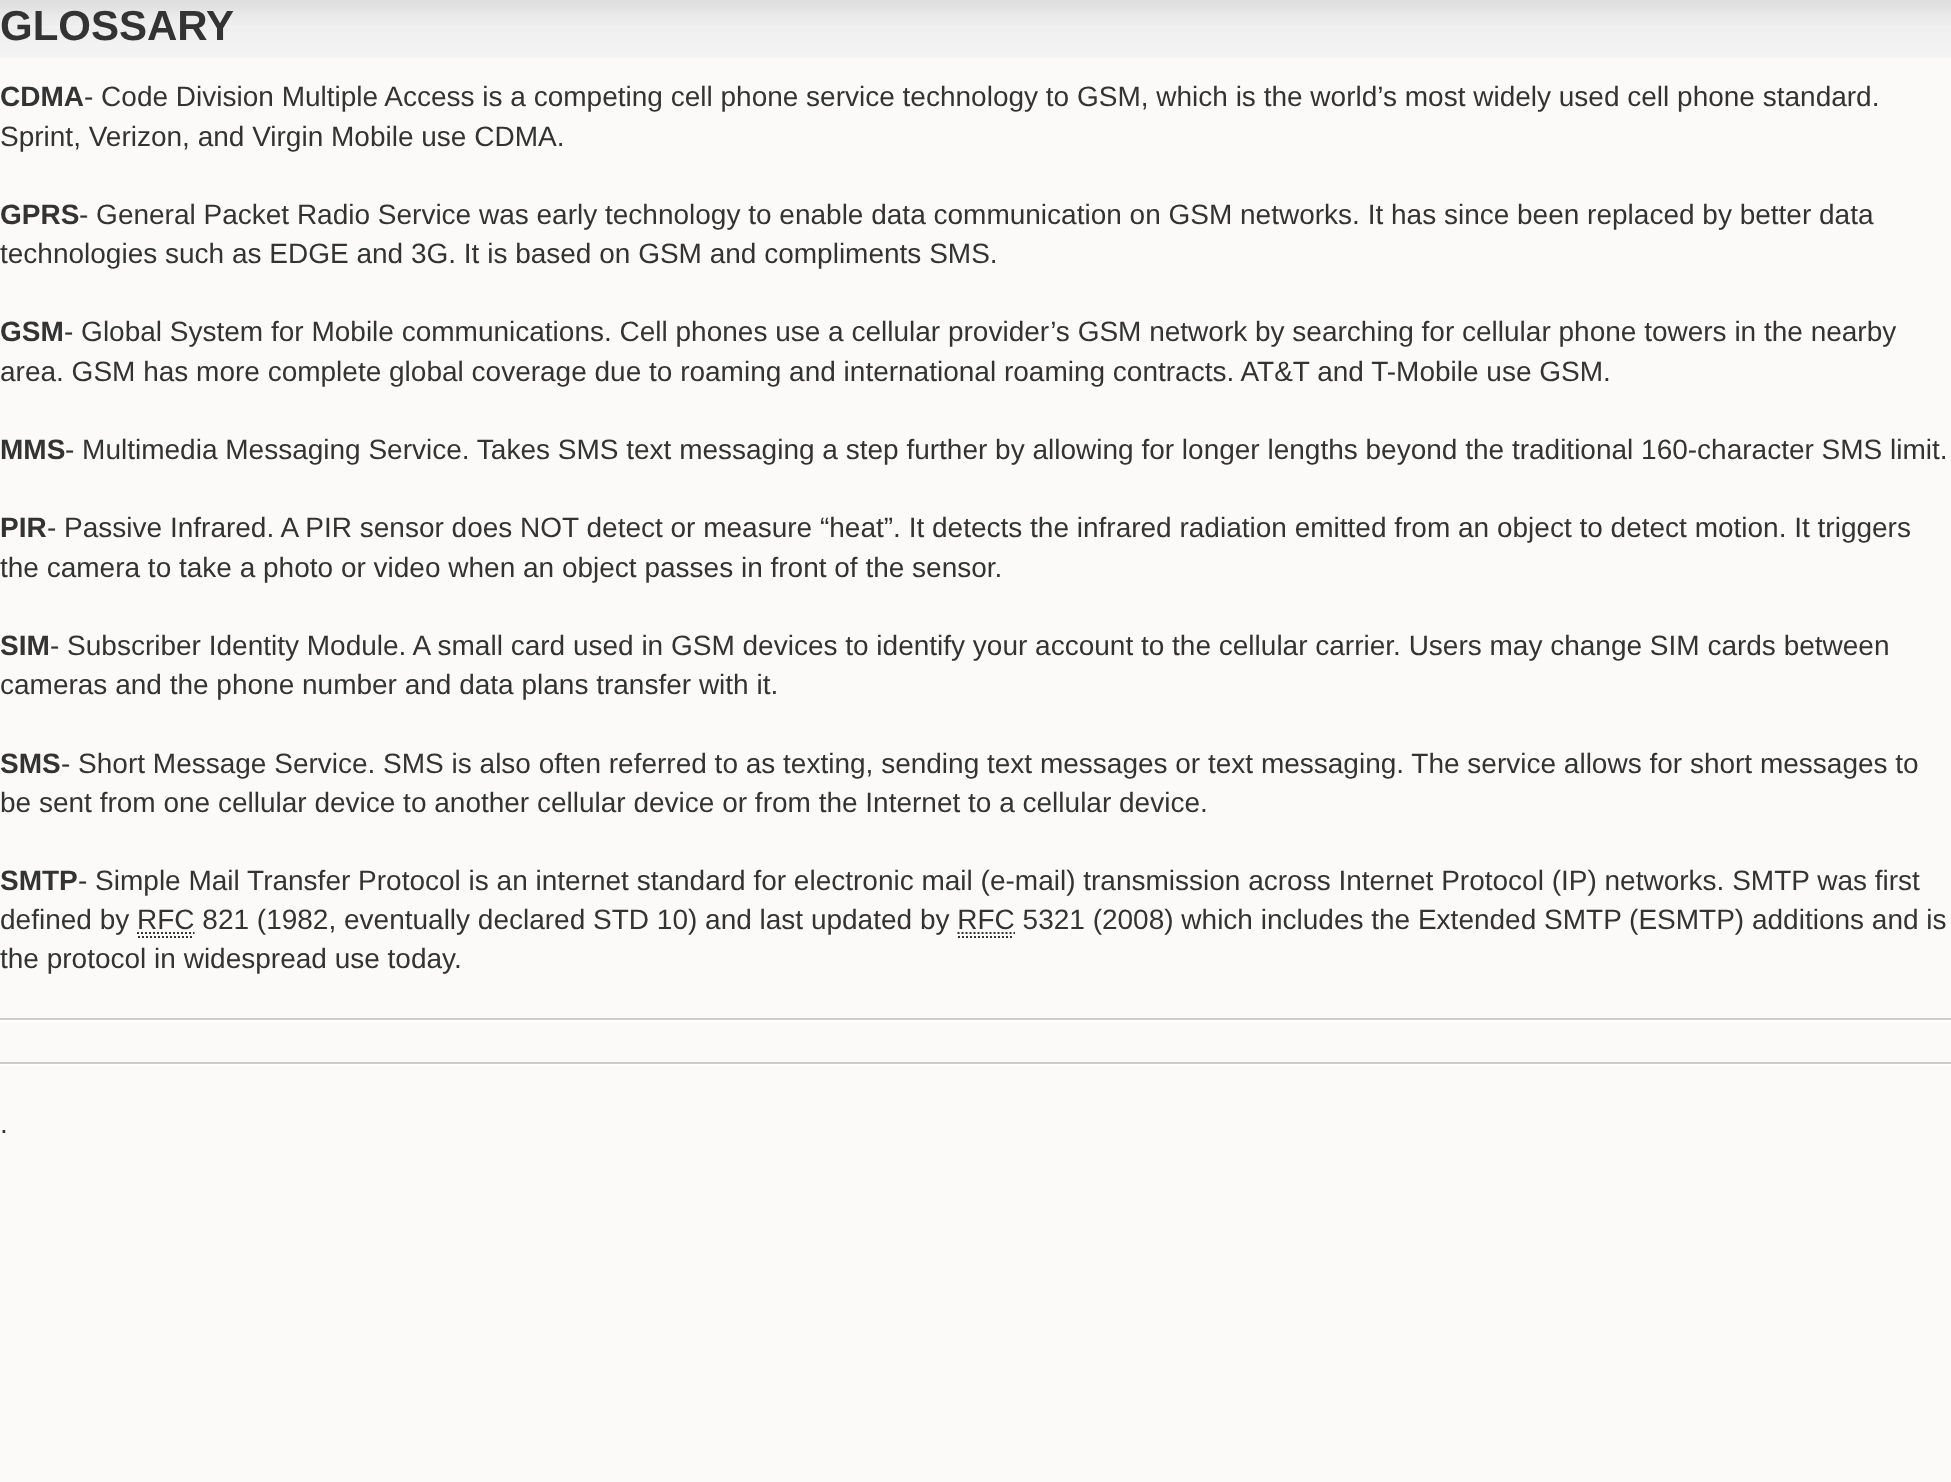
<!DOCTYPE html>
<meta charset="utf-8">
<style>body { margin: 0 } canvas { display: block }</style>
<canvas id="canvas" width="1951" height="1482"></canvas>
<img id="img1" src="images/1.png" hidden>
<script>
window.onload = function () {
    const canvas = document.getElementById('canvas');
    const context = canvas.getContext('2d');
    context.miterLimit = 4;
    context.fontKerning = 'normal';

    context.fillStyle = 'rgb(251, 250, 249)';
    context.fillRect(0, 0, 1951, 1482);
    context.drawImage(document.getElementById('img1'), 0, 0, 1951, 58);
    context.beginPath();
    context.moveTo(138, 937);
    context.lineTo(194, 937);
    context.moveTo(137, 933);
    context.lineTo(194.5, 933);
    context.strokeStyle = 'rgb(51, 51, 51)';
    context.lineWidth = 2;
    context.setLineDash([2, 2]);
    context.stroke();
    context.beginPath();
    context.moveTo(958, 937);
    context.lineTo(1014, 937);
    context.moveTo(957.5, 933);
    context.lineTo(1015, 933);
    context.stroke();
    context.fillStyle = 'rgb(204, 204, 204)';
    context.fillRect(0, 1018, 1951, 2);
    context.fillStyle = 'rgb(255, 255, 255)';
    context.fillRect(0, 1020, 1951, 2);
    context.fillStyle = 'rgb(204, 204, 204)';
    context.fillRect(0, 1062, 1951, 2);
    context.fillStyle = 'rgb(255, 255, 255)';
    context.fillRect(0, 1064, 1951, 2);
    context.font = 'bold 42px Liberation Sans';
    context.fillStyle = 'rgb(51, 51, 51)';
    context.fillText('GLOSSARY', 0, 40);
    context.font = 'bold 28px Liberation Sans';
    context.fillText('CDMA', 0, 106);
    context.font = '28px Liberation Sans';
    context.fillText('- Code Division Multiple Access is a competing cell phone service technology to GSM, which is the world’s most widely used cell phone standard.', 84, 106);
    context.fillText('Sprint, Verizon, and Virgin Mobile use CDMA.', 0, 146);
    context.font = 'bold 28px Liberation Sans';
    context.fillText('GPRS', 0, 224);
    context.font = '28px Liberation Sans';
    context.fillText('- General Packet Radio Service was early technology to enable data communication on GSM networks. It has since been replaced by better data', 79, 224);
    context.fillText('technologies such as EDGE and 3G. It is based on GSM and compliments SMS.', 0, 263);
    context.font = 'bold 28px Liberation Sans';
    context.fillText('GSM', 0, 341);
    context.font = '28px Liberation Sans';
    context.fillText('- Global System for Mobile communications. Cell phones use a cellular provider’s GSM network by searching for cellular phone towers in the nearby', 64, 341);
    context.fillText('area. GSM has more complete global coverage due to roaming and international roaming contracts. AT&T and T-Mobile use GSM.', 0, 381);
    context.font = 'bold 28px Liberation Sans';
    context.fillText('MMS', 0, 459);
    context.font = '28px Liberation Sans';
    context.fillText('- Multimedia Messaging Service. Takes SMS text messaging a step further by allowing for longer lengths beyond the traditional 160-character SMS limit.', 65, 459);
    context.font = 'bold 28px Liberation Sans';
    context.fillText('PIR', 0, 537);
    context.font = '28px Liberation Sans';
    context.fillText('- Passive Infrared. A PIR sensor does NOT detect or measure “heat”. It detects the infrared radiation emitted from an object to detect motion. It triggers', 47, 537);
    context.fillText('the camera to take a photo or video when an object passes in front of the sensor.', 0, 577);
    context.font = 'bold 28px Liberation Sans';
    context.fillText('SIM', 0, 655);
    context.font = '28px Liberation Sans';
    context.fillText('- Subscriber Identity Module. A small card used in GSM devices to identify your account to the cellular carrier. Users may change SIM cards between', 50, 655);
    context.fillText('cameras and the phone number and data plans transfer with it.', 0, 694);
    context.font = 'bold 28px Liberation Sans';
    context.fillText('SMS', 0, 773);
    context.font = '28px Liberation Sans';
    context.fillText('- Short Message Service. SMS is also often referred to as texting, sending text messages or text messaging. The service allows for short messages to', 61, 773);
    context.fillText('be sent from one cellular device to another cellular device or from the Internet to a cellular device.', 0, 812);
    context.font = 'bold 28px Liberation Sans';
    context.fillText('SMTP', 0, 890);
    context.font = '28px Liberation Sans';
    context.fillText('- Simple Mail Transfer Protocol is an internet standard for electronic mail (e-mail) transmission across Internet Protocol (IP) networks. SMTP was first', 78, 890);
    context.fillText('defined by RFC 821 (1982, eventually declared STD 10) and last updated by RFC 5321 (2008) which includes the Extended SMTP (ESMTP) additions and is', 0, 929);
    context.fillText('the protocol in widespread use today.', 0, 968);
    context.fillText('.', 0, 1133);
};
</script>
